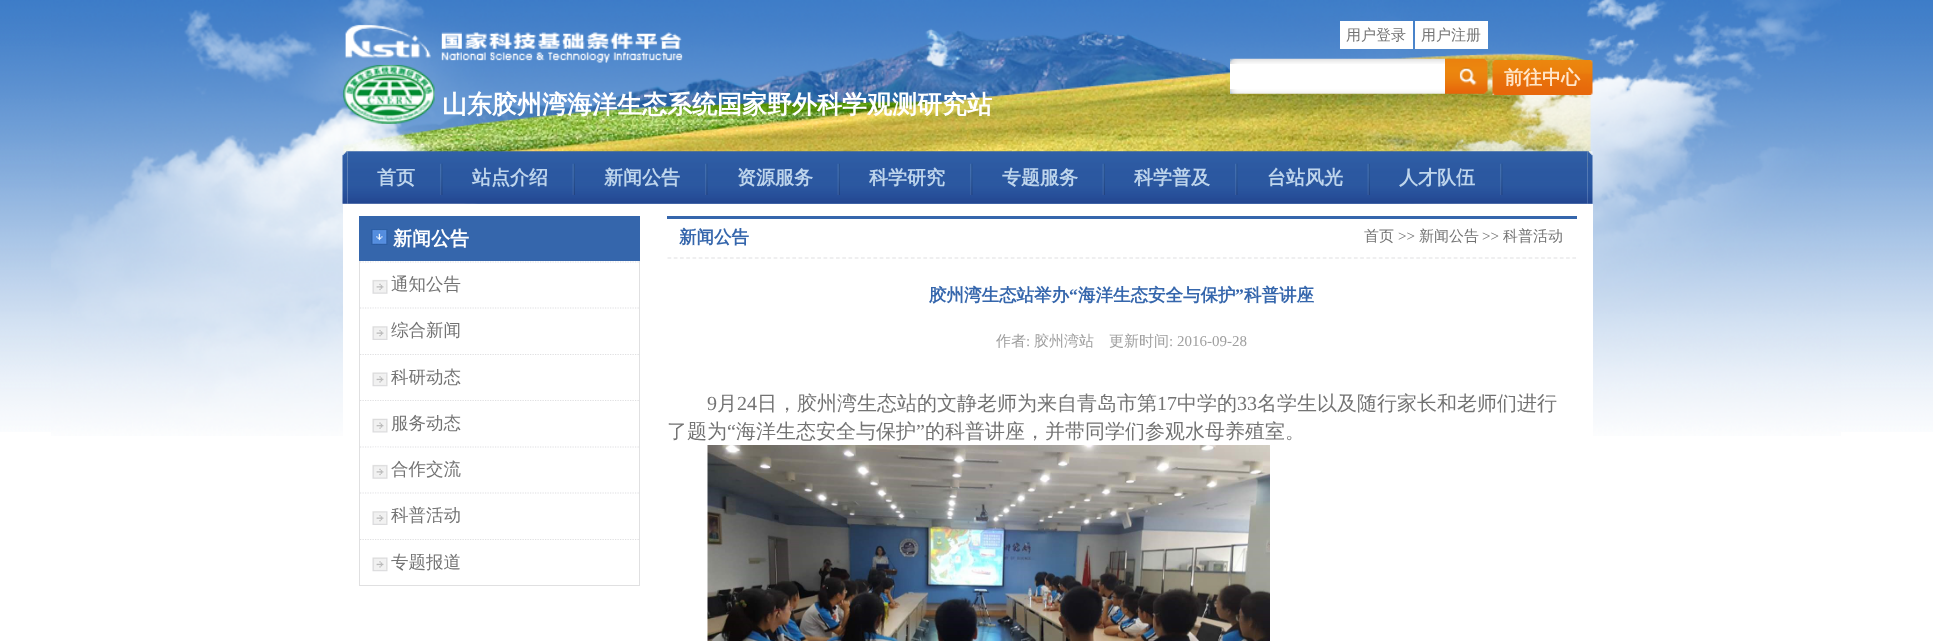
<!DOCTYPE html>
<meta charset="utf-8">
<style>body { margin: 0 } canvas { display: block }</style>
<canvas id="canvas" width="1933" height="641"></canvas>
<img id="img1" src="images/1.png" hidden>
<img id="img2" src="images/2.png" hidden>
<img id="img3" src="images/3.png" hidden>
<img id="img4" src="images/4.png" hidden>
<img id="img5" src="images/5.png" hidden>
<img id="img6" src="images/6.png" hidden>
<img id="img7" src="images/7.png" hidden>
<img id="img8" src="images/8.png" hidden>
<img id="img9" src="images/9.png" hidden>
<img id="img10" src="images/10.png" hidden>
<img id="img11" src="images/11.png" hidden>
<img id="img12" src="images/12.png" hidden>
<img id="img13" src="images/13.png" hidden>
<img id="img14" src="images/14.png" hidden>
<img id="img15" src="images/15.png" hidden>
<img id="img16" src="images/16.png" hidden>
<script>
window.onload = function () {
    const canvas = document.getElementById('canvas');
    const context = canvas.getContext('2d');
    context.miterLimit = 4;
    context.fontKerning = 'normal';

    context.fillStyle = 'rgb(255, 255, 255)';
    context.fillRect(0, 0, 1933, 641);
    context.drawImage(document.getElementById('img1'), 0, 0, 1933, 432);
    context.drawImage(document.getElementById('img2'), 51, 0, 1790, 436);
    context.fillRect(1340, 21, 73, 28);
    context.fillRect(1415, 21, 73, 28);
    context.drawImage(document.getElementById('img3'), 1230, 58, 215, 36);
    context.fillRect(1230, 64, 215, 25);
    context.drawImage(document.getElementById('img4'), 1445, 58, 43, 36);
    context.drawImage(document.getElementById('img5'), 1492, 60, 101, 35);
    context.drawImage(document.getElementById('img6'), 342, 151, 6, 53);
    context.drawImage(document.getElementById('img7'), 347, 151, 1241, 53);
    context.drawImage(document.getElementById('img8'), 440, 163, 3, 32);
    context.drawImage(document.getElementById('img9'), 572, 163, 3, 32);
    context.drawImage(document.getElementById('img8'), 705, 163, 3, 32);
    context.drawImage(document.getElementById('img9'), 837, 163, 3, 32);
    context.drawImage(document.getElementById('img8'), 970, 163, 3, 32);
    context.drawImage(document.getElementById('img9'), 1102, 163, 3, 32);
    context.drawImage(document.getElementById('img8'), 1235, 163, 3, 32);
    context.drawImage(document.getElementById('img9'), 1367, 163, 3, 32);
    context.drawImage(document.getElementById('img8'), 1500, 163, 3, 32);
    context.drawImage(document.getElementById('img10'), 1587, 151, 6, 53);
    context.fillRect(343, 204, 1250, 232);
    context.fillStyle = 'rgb(53, 102, 172)';
    context.fillRect(359, 216, 281, 45);
    context.drawImage(document.getElementById('img11'), 371, 229, 17, 16);
    context.fillStyle = 'rgb(224, 224, 225)';
    context.fillRect(639, 261, 1, 325);
    context.fillRect(359, 585, 281, 1);
    context.fillRect(359, 261, 1, 325);
    context.beginPath();
    context.moveTo(360, 262);
    context.lineTo(639, 262);
    context.strokeStyle = 'rgb(224, 224, 225)';
    context.lineWidth = 1.2;
    context.setLineDash([1.25, 1.25]);
    context.stroke();
    context.drawImage(document.getElementById('img12'), 372, 262, 16, 32);
    context.beginPath();
    context.moveTo(360, 308);
    context.lineTo(639, 308);
    context.stroke();
    context.drawImage(document.getElementById('img13'), 372, 308, 16, 32);
    context.beginPath();
    context.moveTo(360, 354.5);
    context.lineTo(639, 354.5);
    context.stroke();
    context.drawImage(document.getElementById('img14'), 372, 372, 16, 15);
    context.beginPath();
    context.moveTo(360, 400.5);
    context.lineTo(639, 400.5);
    context.stroke();
    context.drawImage(document.getElementById('img15'), 372, 418, 16, 15);
    context.beginPath();
    context.moveTo(360, 447);
    context.lineTo(639, 447);
    context.stroke();
    context.drawImage(document.getElementById('img12'), 372, 447, 16, 32);
    context.beginPath();
    context.moveTo(360, 493);
    context.lineTo(639, 493);
    context.stroke();
    context.drawImage(document.getElementById('img13'), 372, 493, 16, 32);
    context.beginPath();
    context.moveTo(360, 539.5);
    context.lineTo(639, 539.5);
    context.stroke();
    context.drawImage(document.getElementById('img14'), 372, 557, 16, 15);
    context.fillStyle = 'rgb(53, 102, 172)';
    context.fillRect(667, 216, 910, 3);
    context.beginPath();
    context.moveTo(667.5, 258);
    context.lineTo(1576, 258);
    context.setLineDash([3.75, 2.49]);
    context.stroke();
    context.drawImage(document.getElementById('img16'), 707, 445, 563, 196);
    context.font = '500 15px WenQuanYi Zen Hei';
    context.fillStyle = 'rgb(115, 115, 115)';
    context.fillText('用户登录', 1346, 40);
    context.fillText('用户注册', 1421, 40);
    context.font = 'bold 19px WenQuanYi Zen Hei';
    context.fillStyle = 'rgb(255, 230, 201)';
    context.fillText('前往中心', 1504, 84);
    context.font = 'bold 25px WenQuanYi Zen Hei';
    context.fillStyle = 'rgb(255, 255, 255)';
    context.fillText('山东胶州湾海洋生态系统国家野外科学观测研究站', 442, 113);
    context.font = 'bold 19px WenQuanYi Zen Hei';
    context.fillStyle = 'rgb(190, 213, 236)';
    context.fillText('首页', 377, 184);
    context.fillText('站点介绍', 472, 184);
    context.fillText('新闻公告', 604, 184);
    context.fillText('资源服务', 737, 184);
    context.fillText('科学研究', 869, 184);
    context.fillText('专题服务', 1002, 184);
    context.fillText('科学普及', 1134, 184);
    context.fillText('台站风光', 1267, 184);
    context.fillText('人才队伍', 1399, 184);
    context.fillStyle = 'rgb(255, 255, 255)';
    context.fillText('新闻公告', 393, 245);
    context.font = '500 17.5px WenQuanYi Zen Hei';
    context.fillStyle = 'rgb(115, 115, 115)';
    context.fillText('通知公告', 391, 290);
    context.fillText('综合新闻', 391, 336);
    context.fillText('科研动态', 391, 383);
    context.fillText('服务动态', 391, 429);
    context.fillText('合作交流', 391, 475);
    context.fillText('科普活动', 391, 521);
    context.fillText('专题报道', 391, 568);
    context.font = 'bold 17.5px WenQuanYi Zen Hei';
    context.fillStyle = 'rgb(53, 102, 172)';
    context.fillText('新闻公告', 679, 243);
    context.font = '500 15px WenQuanYi Zen Hei';
    context.fillStyle = 'rgb(115, 115, 115)';
    context.fillText('首页', 1364, 241);
    context.font = '15px Liberation Serif';
    context.fillText('>>', 1398, 241);
    context.font = '500 15px WenQuanYi Zen Hei';
    context.fillText('新闻公告', 1419, 241);
    context.font = '15px Liberation Serif';
    context.fillText('>>', 1482, 241);
    context.font = '500 15px WenQuanYi Zen Hei';
    context.fillText('科普活动', 1503, 241);
    context.font = 'bold 17.5px WenQuanYi Zen Hei';
    context.fillStyle = 'rgb(53, 102, 172)';
    context.fillText('胶州湾生态站举办', 929, 301);
    context.font = 'bold 17.5px Liberation Serif';
    context.fillText('“', 1069, 301);
    context.font = 'bold 17.5px WenQuanYi Zen Hei';
    context.fillText('海洋生态安全与保护', 1078, 301);
    context.font = 'bold 17.5px Liberation Serif';
    context.fillText('”', 1235, 301);
    context.font = 'bold 17.5px WenQuanYi Zen Hei';
    context.fillText('科普讲座', 1244, 301);
    context.font = '500 15px WenQuanYi Zen Hei';
    context.fillStyle = 'rgb(159, 159, 159)';
    context.fillText('作者', 996, 346);
    context.font = '15px Liberation Serif';
    context.fillText(':', 1026, 346);
    context.font = '500 15px WenQuanYi Zen Hei';
    context.fillText('胶州湾站　更新时间', 1034, 346);
    context.font = '15px Liberation Serif';
    context.fillText(': 2016-09-28', 1169, 346);
    context.font = '20px Liberation Serif';
    context.fillStyle = 'rgb(115, 115, 115)';
    context.fillText('9', 707, 410);
    context.font = '500 20px WenQuanYi Zen Hei';
    context.fillText('月', 717, 410);
    context.font = '20px Liberation Serif';
    context.fillText('24', 737, 410);
    context.font = '500 20px WenQuanYi Zen Hei';
    context.fillText('日，胶州湾生态站的文静老师为来自青岛市第', 757, 410);
    context.font = '20px Liberation Serif';
    context.fillText('17', 1157, 410);
    context.font = '500 20px WenQuanYi Zen Hei';
    context.fillText('中学的', 1177, 410);
    context.font = '20px Liberation Serif';
    context.fillText('33', 1237, 410);
    context.font = '500 20px WenQuanYi Zen Hei';
    context.fillText('名学生以及随行家长和老师们进行', 1257, 410);
    context.fillText('了题为', 667, 438);
    context.font = '20px Liberation Serif';
    context.fillText('“', 727, 438);
    context.font = '500 20px WenQuanYi Zen Hei';
    context.fillText('海洋生态安全与保护', 736, 438);
    context.font = '20px Liberation Serif';
    context.fillText('”', 916, 438);
    context.font = '500 20px WenQuanYi Zen Hei';
    context.fillText('的科普讲座，并带同学们参观水母养殖室。', 925, 438);
};
</script>
